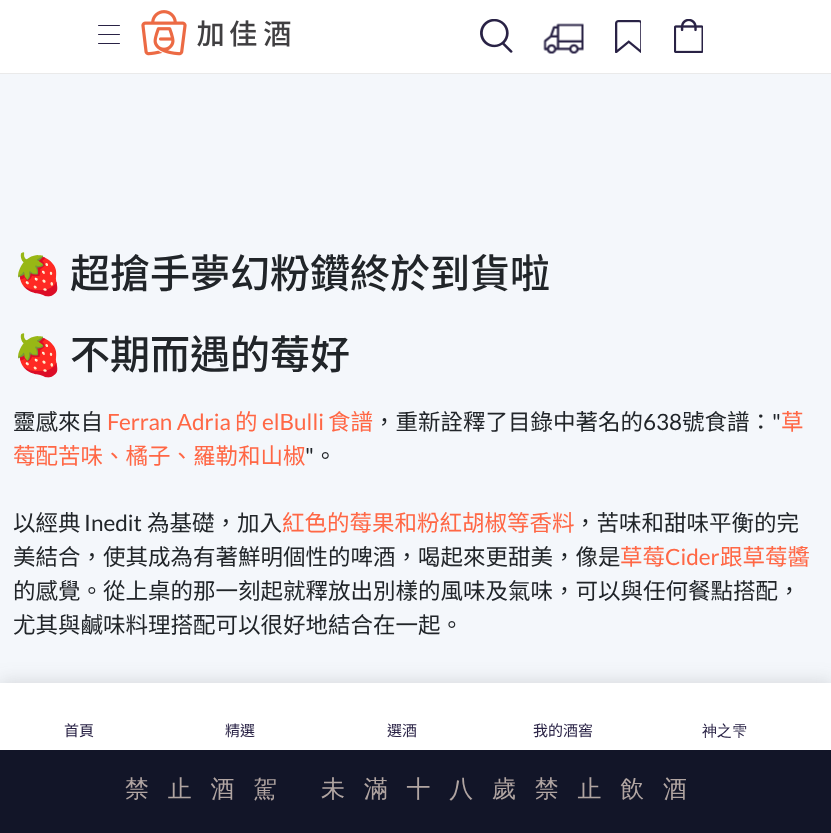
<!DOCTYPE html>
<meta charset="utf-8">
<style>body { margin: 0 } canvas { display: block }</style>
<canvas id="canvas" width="831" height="833"></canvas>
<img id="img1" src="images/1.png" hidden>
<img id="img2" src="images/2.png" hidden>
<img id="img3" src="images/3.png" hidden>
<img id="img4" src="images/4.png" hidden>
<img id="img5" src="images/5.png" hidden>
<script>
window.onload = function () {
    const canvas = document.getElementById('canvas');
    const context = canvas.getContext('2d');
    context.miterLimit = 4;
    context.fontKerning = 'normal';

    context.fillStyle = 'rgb(244, 247, 251)';
    context.fillRect(0, 0, 831, 833);
    context.fillStyle = 'rgb(255, 255, 255)';
    context.fillRect(0, 0, 831, 73);
    context.fillStyle = 'rgb(234, 234, 234)';
    context.fillRect(0, 73, 831, 1);
    context.fillStyle = 'rgb(41, 34, 69)';
    context.beginPath();
    context.roundRect(98, 25, 22, 1, 0.5);
    context.fill();
    context.beginPath();
    context.roundRect(98, 34, 22, 1, 0.5);
    context.fill();
    context.beginPath();
    context.roundRect(98, 43, 22, 1, 0.5);
    context.fill();
    context.drawImage(document.getElementById('img1'), 141, 10, 150, 46);
    context.drawImage(document.getElementById('img2'), 480, 19, 33, 34);
    context.drawImage(document.getElementById('img3'), 543, 23, 41, 31);
    context.drawImage(document.getElementById('img4'), 615, 20, 26, 33);
    context.drawImage(document.getElementById('img5'), 674, 19, 29, 34);
    context.fillStyle = 'rgba(69, 69, 71, 0.2)';
    context.filter = 'blur(10px)';
    context.beginPath();
    context.rect(-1, 683, 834, 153);
    context.fill();
    context.filter = 'none';
    context.fillStyle = 'rgb(255, 255, 255)';
    context.fillRect(0, 683, 831, 67);
    context.fillStyle = 'rgb(18, 21, 40)';
    context.fillRect(0, 750, 831, 83);
    context.font = '40px Noto Color Emoji';
    context.fillStyle = 'rgb(33, 37, 41)';
    context.fillText('🍓', 13, 288);
    context.font = '500 40px Noto Sans TC';
    context.fillText('超搶手夢幻粉鑽終於到貨啦', 70, 288);
    context.font = '40px Noto Color Emoji';
    context.fillText('🍓', 13, 369);
    context.font = '500 40px Noto Sans TC';
    context.fillText('不期而遇的莓好', 70, 369);
    context.font = '22.5px Noto Sans TC';
    context.fillText('靈感來自', 13, 430);
    context.font = '22.5px Lato';
    context.fillStyle = 'rgb(255, 103, 69)';
    context.fillText('Ferran Adria', 107, 430);
    context.font = '22.5px Noto Sans TC';
    context.fillText('的', 235, 430);
    context.font = '22.5px Lato';
    context.fillText('elBulli', 262, 430);
    context.font = '22.5px Noto Sans TC';
    context.fillText('食譜', 328, 430);
    context.fillStyle = 'rgb(33, 37, 41)';
    context.fillText('，重新詮釋了目錄中著名的', 373, 430);
    context.font = '22.5px Lato';
    context.fillText('638', 643, 430);
    context.font = '22.5px Noto Sans TC';
    context.fillText('號食譜：', 682, 430);
    context.font = '22.5px Lato';
    context.fillText('"', 772, 430);
    context.font = '22.5px Noto Sans TC';
    context.fillStyle = 'rgb(255, 103, 69)';
    context.fillText('草', 781, 430);
    context.fillText('莓配苦味、橘子、羅勒和山椒', 13, 464);
    context.font = '22.5px Lato';
    context.fillStyle = 'rgb(33, 37, 41)';
    context.fillText('"', 305, 464);
    context.font = '22.5px Noto Sans TC';
    context.fillText('。', 314, 464);
    context.fillText('以經典', 13, 531);
    context.font = '22.5px Lato';
    context.fillText('Inedit', 84, 531);
    context.font = '22.5px Noto Sans TC';
    context.fillText('為基礎，加入', 147, 531);
    context.fillStyle = 'rgb(255, 103, 69)';
    context.fillText('紅色的莓果和粉紅胡椒等香料', 282, 531);
    context.fillStyle = 'rgb(33, 37, 41)';
    context.fillText('，苦味和甜味平衡的完', 574, 531);
    context.fillText('美結合，使其成為有著鮮明個性的啤酒，喝起來更甜美，像是', 13, 565);
    context.fillStyle = 'rgb(255, 103, 69)';
    context.fillText('草莓', 620, 565);
    context.font = '22.5px Lato';
    context.fillText('Cider', 665, 565);
    context.font = '22.5px Noto Sans TC';
    context.fillText('跟草莓醬', 720, 565);
    context.fillStyle = 'rgb(33, 37, 41)';
    context.fillText('的感覺。從上桌的那一刻起就釋放出別樣的風味及氣味，可以與任何餐點搭配，', 13, 599);
    context.fillText('尤其與鹹味料理搭配可以很好地結合在一起。', 13, 633);
    context.font = '15px Noto Sans TC';
    context.fillStyle = 'rgb(41, 34, 69)';
    context.fillText('首頁', 64, 736);
    context.fillText('精選', 225, 736);
    context.fillText('選酒', 387, 736);
    context.fillText('我的酒窖', 533, 736);
    context.font = '500 15px WenQuanYi Zen Hei';
    context.fillText('神之雫', 702, 736);
    context.letterSpacing = '18.75px';
    context.font = '500 24px WenQuanYi Zen Hei';
    context.fillStyle = 'rgb(177, 165, 162)';
    context.fillText('禁止酒駕', 125, 797);
    context.fillText('未滿十八歲禁止飲酒', 321, 797);
};
</script>
